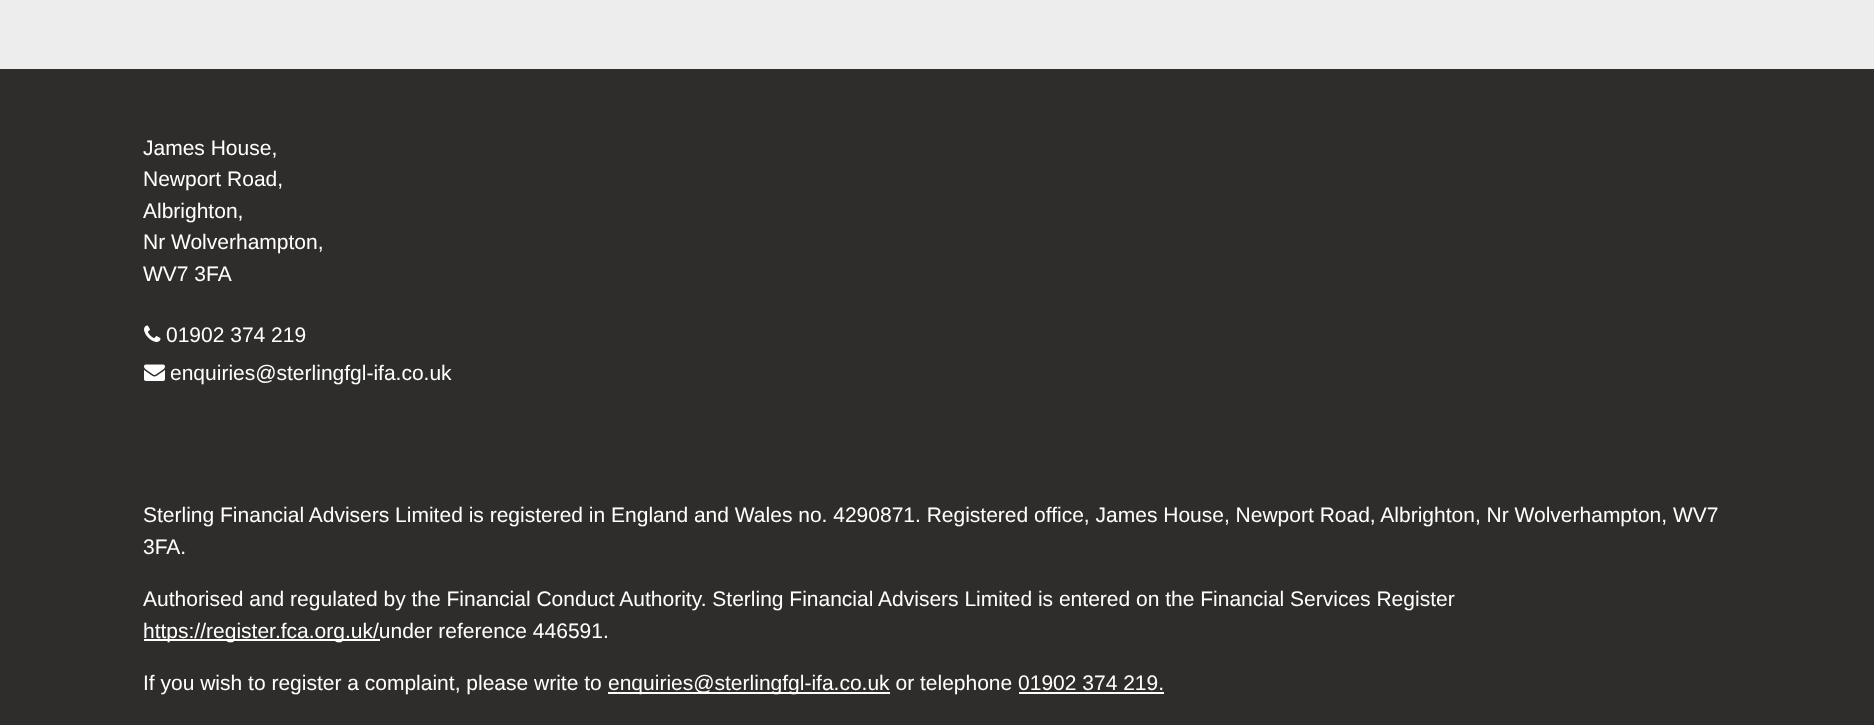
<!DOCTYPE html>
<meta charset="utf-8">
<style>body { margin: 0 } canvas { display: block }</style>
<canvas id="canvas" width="1874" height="725"></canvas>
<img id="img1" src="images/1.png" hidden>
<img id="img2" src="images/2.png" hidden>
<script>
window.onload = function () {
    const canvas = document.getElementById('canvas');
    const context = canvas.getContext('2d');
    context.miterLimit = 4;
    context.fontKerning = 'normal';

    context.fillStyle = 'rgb(237, 237, 237)';
    context.fillRect(0, 0, 1874, 725);
    context.fillStyle = 'rgb(46, 45, 44)';
    context.fillRect(0, 69, 1874, 656);
    context.drawImage(document.getElementById('img1'), 144, 325, 17, 17);
    context.drawImage(document.getElementById('img2'), 144, 364, 21, 17);
    context.fillStyle = 'rgb(255, 255, 255)';
    context.fillRect(144, 639, 236, 2);
    context.fillRect(608, 692, 282, 2);
    context.fillRect(1019, 692, 145, 2);
    context.font = '21px Liberation Sans';
    context.fillText('James House,', 143, 155);
    context.fillText('Newport Road,', 143, 186);
    context.fillText('Albrighton,', 143, 218);
    context.fillText('Nr Wolverhampton,', 143, 249);
    context.fillText('WV7 3FA', 143, 281);
    context.fillText('01902 374 219', 166, 342);
    context.fillText('enquiries@sterlingfgl-ifa.co.uk', 170, 380);
    context.fillText('Sterling Financial Advisers Limited is registered in England and Wales no. 4290871. Registered office, James House, Newport Road, Albrighton, Nr Wolverhampton, WV7', 143, 522);
    context.fillText('3FA.', 143, 554);
    context.fillText('Authorised and regulated by the Financial Conduct Authority. Sterling Financial Advisers Limited is entered on the Financial Services Register', 143, 606);
    context.fillText('https://register.fca.org.uk/under reference 446591.', 143, 638);
    context.fillText('If you wish to register a complaint, please write to', 143, 690);
    context.fillText('enquiries@sterlingfgl-ifa.co.uk or telephone 01902 374 219.', 608, 690);
};
</script>
